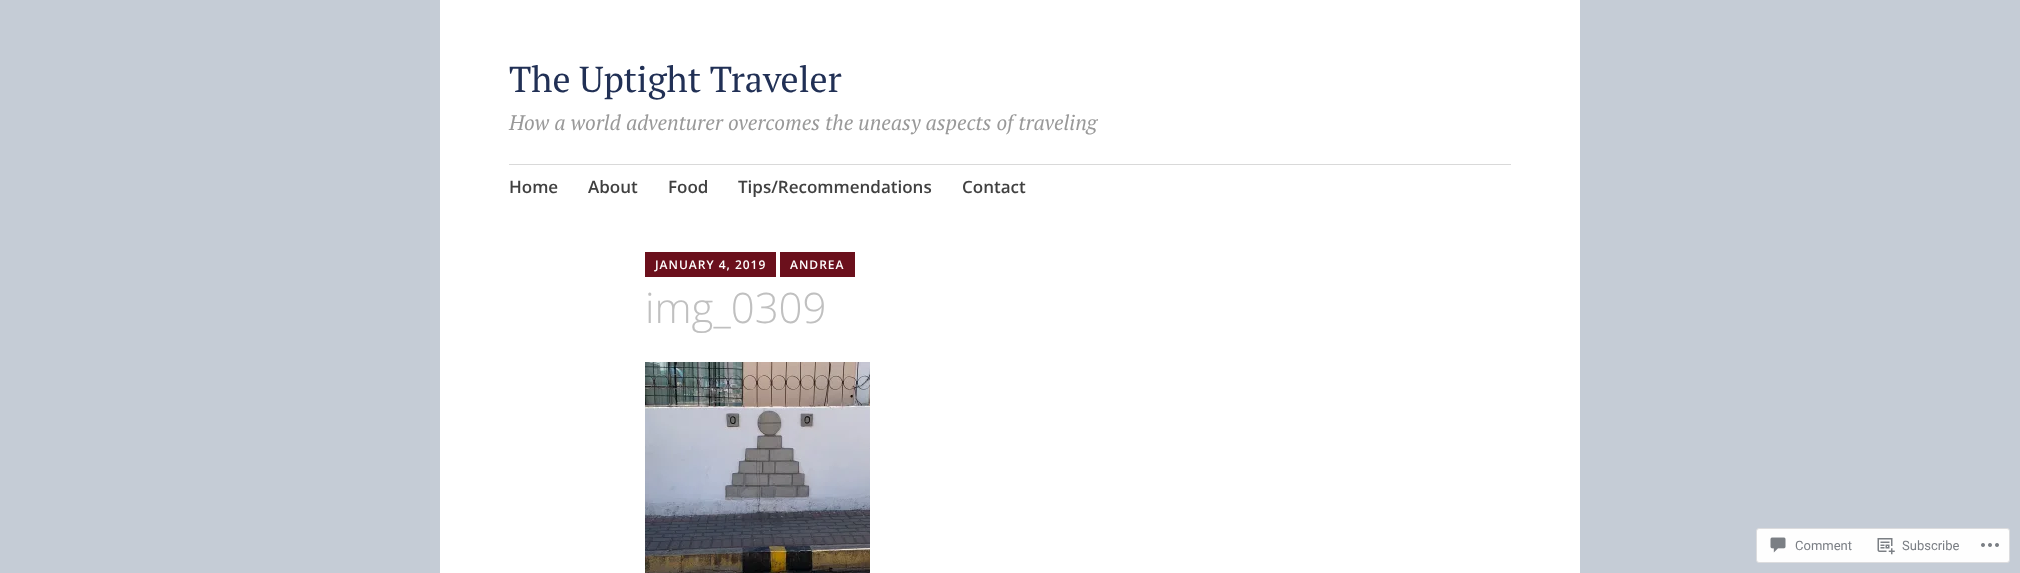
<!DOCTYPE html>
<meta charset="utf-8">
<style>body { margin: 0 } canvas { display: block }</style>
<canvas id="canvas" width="2020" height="573"></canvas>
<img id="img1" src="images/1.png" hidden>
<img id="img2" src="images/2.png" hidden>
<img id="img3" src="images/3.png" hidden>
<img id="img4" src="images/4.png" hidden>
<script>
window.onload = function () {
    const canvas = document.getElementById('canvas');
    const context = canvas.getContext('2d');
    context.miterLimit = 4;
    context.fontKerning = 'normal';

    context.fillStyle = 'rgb(197, 204, 214)';
    context.fillRect(0, 0, 2020, 573);
    context.fillStyle = 'rgb(255, 255, 255)';
    context.fillRect(440, 0, 1140, 573);
    context.fillStyle = 'rgb(217, 217, 217)';
    context.fillRect(509, 164, 1002, 1);
    context.fillStyle = 'rgb(107, 16, 28)';
    context.fillRect(645, 252, 131, 25);
    context.fillRect(780, 252, 75, 25);
    context.drawImage(document.getElementById('img1'), 645, 362, 225, 211);
    context.fillStyle = 'rgb(254, 254, 254)';
    context.beginPath();
    context.roundRect(1756.5, 528.5, 253, 34, 2.5);
    context.fill();
    context.strokeStyle = 'rgb(220, 220, 222)';
    context.stroke();
    context.drawImage(document.getElementById('img2'), 1770, 537, 16, 16);
    context.drawImage(document.getElementById('img3'), 1877, 538, 18, 17);
    context.drawImage(document.getElementById('img4'), 1981, 543, 18, 4);
    context.font = '36px PT Serif';
    context.fillStyle = 'rgb(33, 48, 85)';
    context.fillText('The Uptight Traveler', 509, 92);
    context.font = 'italic 21px PT Serif';
    context.fillStyle = 'rgb(153, 153, 153)';
    context.fillText('How a world adventurer overcomes the uneasy aspects of traveling', 509, 130);
    context.font = '600 17px Open Sans';
    context.fillStyle = 'rgb(64, 64, 64)';
    context.fillText('Home', 509, 193);
    context.fillText('About', 588, 193);
    context.fillText('Food', 668, 193);
    context.fillText('Tips/Recommendations', 738, 193);
    context.fillText('Contact', 962, 193);
    context.letterSpacing = '1px';
    context.font = '600 12px Open Sans';
    context.fillStyle = 'rgb(255, 255, 255)';
    context.fillText('JANUARY 4, 2019', 655, 269);
    context.fillText('ANDREA', 790, 269);
    context.letterSpacing = '0px';
    context.font = '300 42px Open Sans';
    context.fillStyle = 'rgb(192, 192, 192)';
    context.fillText('img_0309', 645, 323);
    context.font = '13px Roboto';
    context.fillStyle = 'rgb(122, 126, 132)';
    context.fillText('Comment', 1795, 550);
    context.fillText('Subscribe', 1902, 550);
};
</script>
